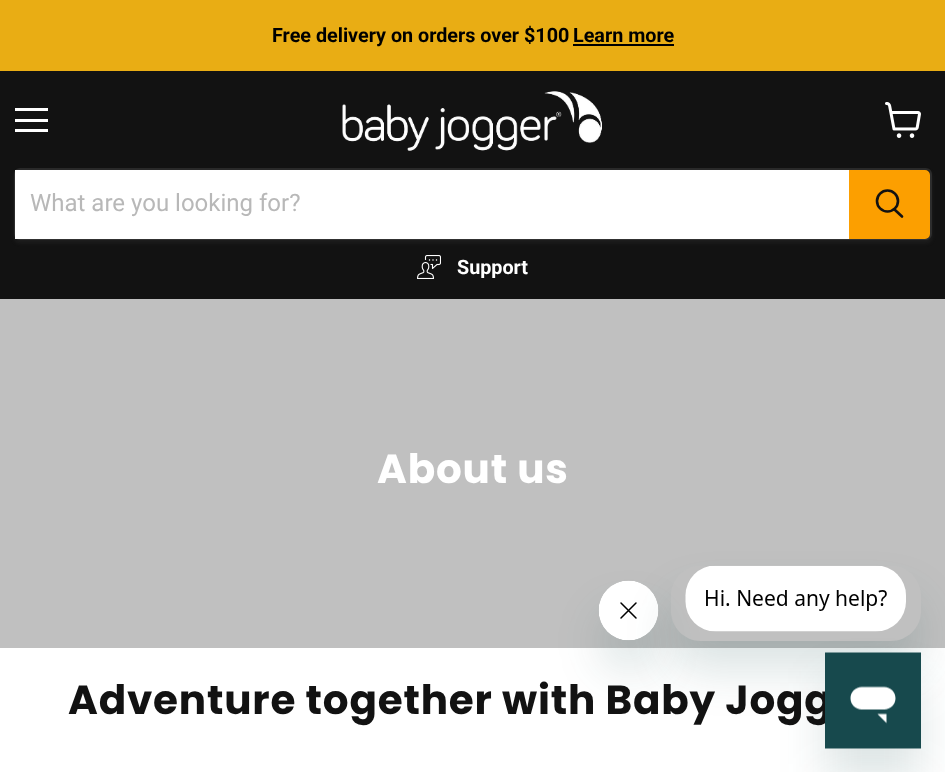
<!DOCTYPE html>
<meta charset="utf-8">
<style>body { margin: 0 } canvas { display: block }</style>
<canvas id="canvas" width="945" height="772"></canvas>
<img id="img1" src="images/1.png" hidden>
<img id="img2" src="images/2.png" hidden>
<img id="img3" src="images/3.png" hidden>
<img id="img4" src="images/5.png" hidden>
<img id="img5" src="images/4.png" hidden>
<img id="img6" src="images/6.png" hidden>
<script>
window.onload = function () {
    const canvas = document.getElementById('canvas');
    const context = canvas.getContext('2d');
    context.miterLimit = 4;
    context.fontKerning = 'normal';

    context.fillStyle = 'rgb(255, 255, 255)';
    context.fillRect(0, 0, 945, 772);
    context.fillStyle = 'rgb(233, 173, 20)';
    context.fillRect(0, 0, 945, 71);
    context.fillStyle = 'rgb(0, 0, 0)';
    context.fillRect(573, 44, 101, 2);
    context.fillStyle = 'rgb(18, 18, 18)';
    context.fillRect(0, 71, 945, 228);
    context.fillStyle = 'rgb(255, 255, 255)';
    context.fillRect(15, 108, 33, 3);
    context.fillRect(15, 119, 33, 3);
    context.fillRect(15, 129, 33, 3);
    context.drawImage(document.getElementById('img1'), 885, 102, 36, 36);
    context.drawImage(document.getElementById('img2'), 342, 91, 260, 60);
    context.fillStyle = 'rgba(128, 128, 128, 0.11)';
    context.filter = 'blur(2px)';
    context.beginPath();
    context.roundRect(14, 171, 918, 72, 6);
    context.fill();
    context.filter = 'none';
    context.beginPath();
    context.roundRect(15, 169, 916, 70, 5);
    context.strokeStyle = 'rgba(128, 128, 128, 0.2)';
    context.lineWidth = 2;
    context.stroke();
    context.fillStyle = 'rgb(255, 255, 255)';
    context.fillRect(15, 170, 834, 69);
    context.fillStyle = 'rgb(252, 159, 0)';
    context.beginPath();
    context.roundRect(850, 171, 79, 67, [0, 4, 4, 0]);
    context.fill();
    context.strokeStyle = 'rgb(252, 159, 0)';
    context.stroke();
    context.beginPath();
    context.moveTo(902, 216.5);
    context.lineTo(894.5, 209.5);
    context.strokeStyle = 'rgb(18, 18, 18)';
    context.lineWidth = 2.6;
    context.lineCap = 'round';
    context.stroke();
    context.beginPath();
    context.arc(887.5, 201, 10.5, 0, 2 * Math.PI);
    context.stroke();
    context.drawImage(document.getElementById('img3'), 417, 255, 24, 24);
    context.fillStyle = 'rgb(192, 192, 192)';
    context.fillRect(0, 299, 945, 349);
    context.fillStyle = 'rgba(23, 73, 77, 0.15)';
    context.filter = 'blur(22.5px)';
    context.beginPath();
    context.roundRect(599, 611, 60, 60, 30);
    context.fill();
    context.filter = 'none';
    context.drawImage(document.getElementById('img4'), 598, 580, 61, 61);
    context.save();
    context.beginPath();
    context.moveTo(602, 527);
    context.lineTo(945, 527);
    context.lineTo(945, 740);
    context.lineTo(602, 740);
    context.closePath();
    context.moveTo(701, 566);
    context.lineTo(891, 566);
    context.bezierCurveTo(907.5, 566, 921, 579.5, 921, 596);
    context.lineTo(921, 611);
    context.bezierCurveTo(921, 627.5, 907.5, 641, 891, 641);
    context.lineTo(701, 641);
    context.bezierCurveTo(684.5, 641, 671, 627.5, 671, 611);
    context.lineTo(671, 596);
    context.bezierCurveTo(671, 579.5, 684.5, 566, 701, 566);
    context.closePath();
    context.clip('evenodd');
    context.filter = 'blur(22.5px)';
    context.beginPath();
    context.roundRect(671, 596, 250, 75, 30);
    context.fill();
    context.filter = 'none';
    context.restore();
    context.drawImage(document.getElementById('img5'), 685, 565, 221, 67);
    context.filter = 'blur(22.5px)';
    context.beginPath();
    context.rect(825, 683, 96, 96);
    context.fill();
    context.filter = 'none';
    context.font = 'bold 19.75px Roboto';
    context.fillStyle = 'rgb(0, 0, 0)';
    context.fillText('Free delivery on orders over $100', 272, 42);
    context.fillText('Learn more', 573, 42);
    context.font = '24px Roboto';
    context.fillStyle = 'rgb(184, 184, 184)';
    context.fillText('What are you looking for?', 30, 211);
    context.font = 'bold 19.75px Roboto';
    context.fillStyle = 'rgb(255, 255, 255)';
    context.fillText('Support', 457, 274);
    context.letterSpacing = '0.8px';
    context.font = 'bold 40.5px Poppins';
    context.fillText('About us', 377, 483);
    context.fillStyle = 'rgb(18, 18, 18)';
    context.fillText('Adventure together with Baby Jogg', 68, 714);
    context.drawImage(document.getElementById('img6'), 825, 652, 96, 97);
};
</script>
